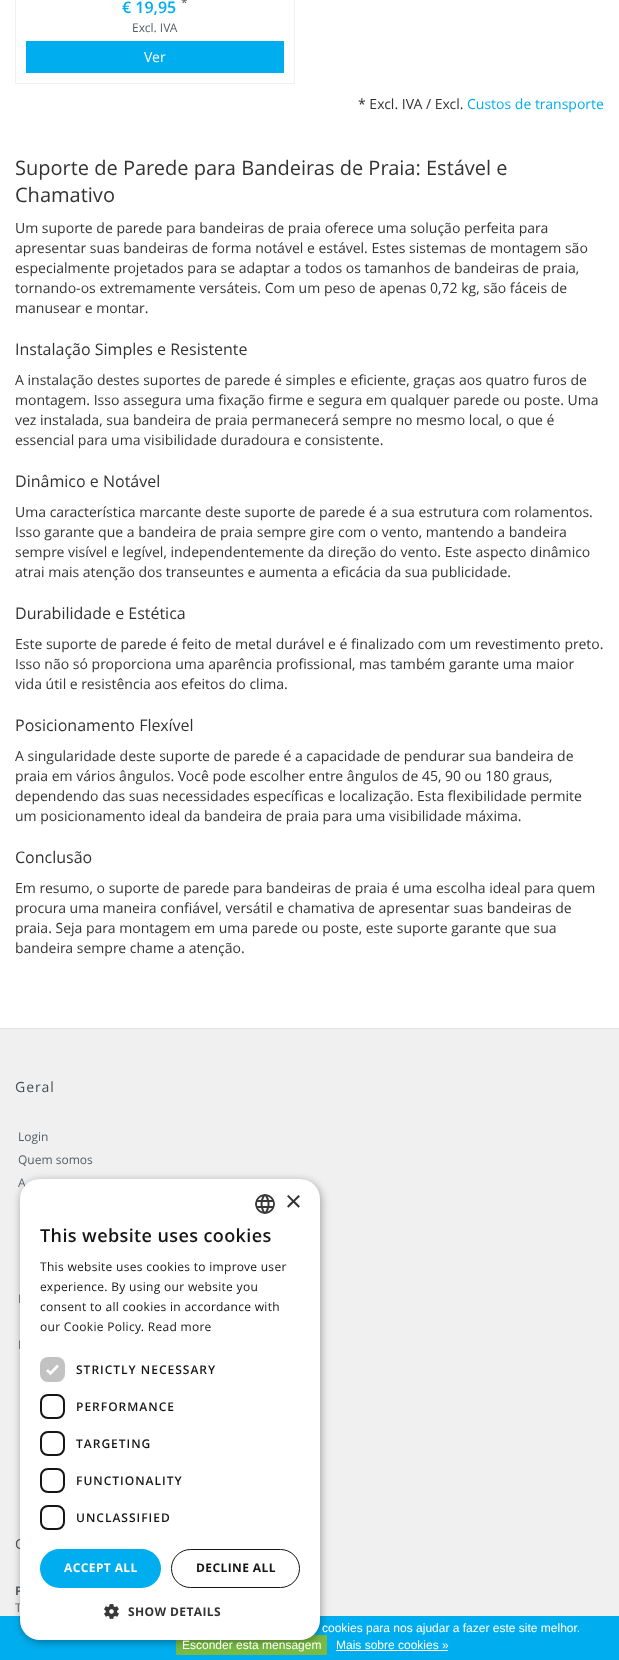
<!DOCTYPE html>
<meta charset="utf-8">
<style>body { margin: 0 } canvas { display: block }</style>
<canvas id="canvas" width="619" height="1660"></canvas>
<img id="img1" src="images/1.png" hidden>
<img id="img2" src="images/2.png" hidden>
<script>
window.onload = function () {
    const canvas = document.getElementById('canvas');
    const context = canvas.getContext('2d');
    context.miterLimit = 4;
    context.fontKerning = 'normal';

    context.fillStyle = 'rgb(255, 255, 255)';
    context.fillRect(0, 0, 619, 1660);
    context.strokeStyle = 'rgb(240, 240, 240)';
    context.strokeRect(15.5, -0.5, 279, 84);
    context.fillStyle = 'rgb(0, 174, 239)';
    context.fillRect(26, 41, 258, 32);
    context.fillStyle = 'rgb(240, 240, 240)';
    context.fillRect(0, 1029, 619, 587);
    context.fillStyle = 'rgb(225, 225, 225)';
    context.fillRect(0, 1028, 619, 1);
    context.fillStyle = 'rgb(0, 174, 239)';
    context.fillRect(0, 1616, 619, 44);
    context.fillStyle = 'rgb(120, 187, 67)';
    context.fillRect(176, 1635, 151, 20);
    context.fillStyle = 'rgba(0, 0, 0, 0.35)';
    context.filter = 'blur(4px)';
    context.beginPath();
    context.roundRect(21, 1181, 300, 461, 20);
    context.fill();
    context.filter = 'none';
    context.fillStyle = 'rgb(255, 255, 255)';
    context.fillRect(336, 1650, 112, 1);
    context.font = '600 16px Open Sans';
    context.fillStyle = 'rgb(0, 174, 239)';
    context.fillText('€ 19,95', 122, 13);
    context.font = '12px Open Sans';
    context.fillStyle = 'rgb(83, 94, 100)';
    context.fillText('*', 181, 7);
    context.fillText('Excl. IVA', 132, 32);
    context.font = '14px Open Sans';
    context.fillStyle = 'rgb(255, 255, 255)';
    context.fillText('Ver', 144, 62);
    context.fillStyle = 'rgb(51, 51, 51)';
    context.fillText('* Excl. IVA / Excl.', 358, 109);
    context.fillStyle = 'rgb(0, 174, 239)';
    context.fillText('Custos de transporte', 467, 109);
    context.font = '20px Open Sans';
    context.fillStyle = 'rgb(51, 51, 51)';
    context.fillText('Suporte de Parede para Bandeiras de Praia: Estável e', 15, 175);
    context.fillText('Chamativo', 15, 202);
    context.font = '14px Open Sans';
    context.fillText('Um suporte de parede para bandeiras de praia oferece uma solução perfeita para', 15, 233);
    context.fillText('apresentar suas bandeiras de forma notável e estável. Estes sistemas de montagem são', 15, 253);
    context.fillText('especialmente projetados para se adaptar a todos os tamanhos de bandeiras de praia,', 15, 273);
    context.fillText('tornando-os extremamente versáteis. Com um peso de apenas 0,72 kg, são fáceis de', 15, 293);
    context.fillText('manusear e montar.', 15, 313);
    context.font = '16px Open Sans';
    context.fillText('Instalação Simples e Resistente', 15, 355);
    context.font = '14px Open Sans';
    context.fillText('A instalação destes suportes de parede é simples e eficiente, graças aos quatro furos de', 15, 385);
    context.fillText('montagem. Isso assegura uma fixação firme e segura em qualquer parede ou poste. Uma', 15, 405);
    context.fillText('vez instalada, sua bandeira de praia permanecerá sempre no mesmo local, o que é', 15, 425);
    context.fillText('essencial para uma visibilidade duradoura e consistente.', 15, 445);
    context.font = '16px Open Sans';
    context.fillText('Dinâmico e Notável', 15, 487);
    context.font = '14px Open Sans';
    context.fillText('Uma característica marcante deste suporte de parede é a sua estrutura com rolamentos.', 15, 517);
    context.fillText('Isso garante que a bandeira de praia sempre gire com o vento, mantendo a bandeira', 15, 537);
    context.fillText('sempre visível e legível, independentemente da direção do vento. Este aspecto dinâmico', 15, 557);
    context.fillText('atrai mais atenção dos transeuntes e aumenta a eficácia da sua publicidade.', 15, 577);
    context.font = '16px Open Sans';
    context.fillText('Durabilidade e Estética', 15, 619);
    context.font = '14px Open Sans';
    context.fillText('Este suporte de parede é feito de metal durável e é finalizado com um revestimento preto.', 15, 649);
    context.fillText('Isso não só proporciona uma aparência profissional, mas também garante uma maior', 15, 669);
    context.fillText('vida útil e resistência aos efeitos do clima.', 15, 689);
    context.font = '16px Open Sans';
    context.fillText('Posicionamento Flexível', 15, 731);
    context.font = '14px Open Sans';
    context.fillText('A singularidade deste suporte de parede é a capacidade de pendurar sua bandeira de', 15, 761);
    context.fillText('praia em vários ângulos. Você pode escolher entre ângulos de 45, 90 ou 180 graus,', 15, 781);
    context.fillText('dependendo das suas necessidades específicas e localização. Esta flexibilidade permite', 15, 801);
    context.fillText('um posicionamento ideal da bandeira de praia para uma visibilidade máxima.', 15, 821);
    context.font = '16px Open Sans';
    context.fillText('Conclusão', 15, 863);
    context.font = '14px Open Sans';
    context.fillText('Em resumo, o suporte de parede para bandeiras de praia é uma escolha ideal para quem', 15, 893);
    context.fillText('procura uma maneira confiável, versátil e chamativa de apresentar suas bandeiras de', 15, 913);
    context.fillText('praia. Seja para montagem em uma parede ou poste, este suporte garante que sua', 15, 933);
    context.fillText('bandeira sempre chame a atenção.', 15, 953);
    context.letterSpacing = '1px';
    context.fillStyle = 'rgb(69, 78, 83)';
    context.fillText('Geral', 15, 1092);
    context.letterSpacing = '0px';
    context.font = '12px Open Sans';
    context.fillStyle = 'rgb(83, 94, 100)';
    context.fillText('Login', 18, 1141);
    context.fillText('Quem somos', 18, 1164);
    context.fillText('A', 18, 1187);
    context.fillText('I', 18, 1303);
    context.fillText('I', 18, 1349);
    context.letterSpacing = '1px';
    context.font = '14px Open Sans';
    context.fillStyle = 'rgb(69, 78, 83)';
    context.fillText('C', 15, 1549);
    context.letterSpacing = '0px';
    context.font = 'bold 12px Open Sans';
    context.fillStyle = 'rgb(83, 94, 100)';
    context.fillText('P', 15, 1595);
    context.font = '12px Open Sans';
    context.fillText('T', 15, 1612);
    context.fillStyle = 'rgb(255, 255, 255)';
    context.beginPath();
    context.roundRect(20, 1179, 300, 461, 20);
    context.fill();
    context.drawImage(document.getElementById('img1'), 255, 1194, 20, 20);
    context.font = '29px Liberation Sans';
    context.fillStyle = 'rgb(51, 51, 51)';
    context.fillText('×', 285, 1211);
    context.letterSpacing = '0.4px';
    context.font = '600 18px Open Sans';
    context.fillStyle = 'rgb(21, 21, 21)';
    context.fillText('This website uses cookies', 40, 1242);
    context.letterSpacing = '0.3px';
    context.font = '12px Open Sans';
    context.fillText('This website uses cookies to improve user', 40, 1271);
    context.fillText('experience. By using our website you', 40, 1291);
    context.fillText('consent to all cookies in accordance with', 40, 1311);
    context.fillText('our Cookie Policy. Read more', 40, 1331);
    context.fillStyle = 'rgb(194, 194, 194)';
    context.beginPath();
    context.roundRect(40, 1357, 25, 25, 8);
    context.fill();
    context.beginPath();
    context.moveTo(47, 1370);
    context.lineTo(50.5, 1373.5);
    context.lineTo(58, 1365.5);
    context.strokeStyle = 'rgb(255, 255, 255)';
    context.lineWidth = 2.6;
    context.stroke();
    context.letterSpacing = '1px';
    context.font = '600 12px Open Sans';
    context.fillStyle = 'rgb(21, 21, 21)';
    context.fillText('STRICTLY NECESSARY', 76, 1374);
    context.beginPath();
    context.roundRect(41, 1395, 23, 23, 7);
    context.strokeStyle = 'rgb(21, 21, 21)';
    context.lineWidth = 2;
    context.stroke();
    context.fillText('PERFORMANCE', 76, 1411);
    context.beginPath();
    context.roundRect(41, 1432, 23, 23, 7);
    context.stroke();
    context.fillText('TARGETING', 76, 1448);
    context.beginPath();
    context.roundRect(41, 1469, 23, 23, 7);
    context.stroke();
    context.fillText('FUNCTIONALITY', 76, 1485);
    context.beginPath();
    context.roundRect(41, 1506, 23, 23, 7);
    context.stroke();
    context.fillText('UNCLASSIFIED', 76, 1522);
    context.fillStyle = 'rgb(0, 174, 239)';
    context.beginPath();
    context.roundRect(40, 1549, 121, 39, 19.5);
    context.fill();
    context.letterSpacing = '0.4px';
    context.font = 'bold 12px Open Sans';
    context.fillStyle = 'rgb(255, 255, 255)';
    context.fillText('ACCEPT ALL', 64, 1572);
    context.beginPath();
    context.roundRect(171.5, 1549.5, 128, 38, 19);
    context.lineWidth = 1;
    context.stroke();
    context.fillStyle = 'rgb(21, 21, 21)';
    context.fillText('DECLINE ALL', 196, 1572);
    context.drawImage(document.getElementById('img2'), 104, 1604, 15, 15);
    context.fillStyle = 'rgb(51, 51, 51)';
    context.fillText('SHOW DETAILS', 128, 1616);
    context.letterSpacing = '0px';
    context.font = '12px Liberation Sans';
    context.fillStyle = 'rgb(255, 255, 255)';
    context.fillText('cookies para nos ajudar a fazer este site melhor.', 322, 1632);
    context.fillText('Esconder esta mensagem', 182, 1649);
    context.fillText('Mais sobre cookies »', 336, 1649);
};
</script>
